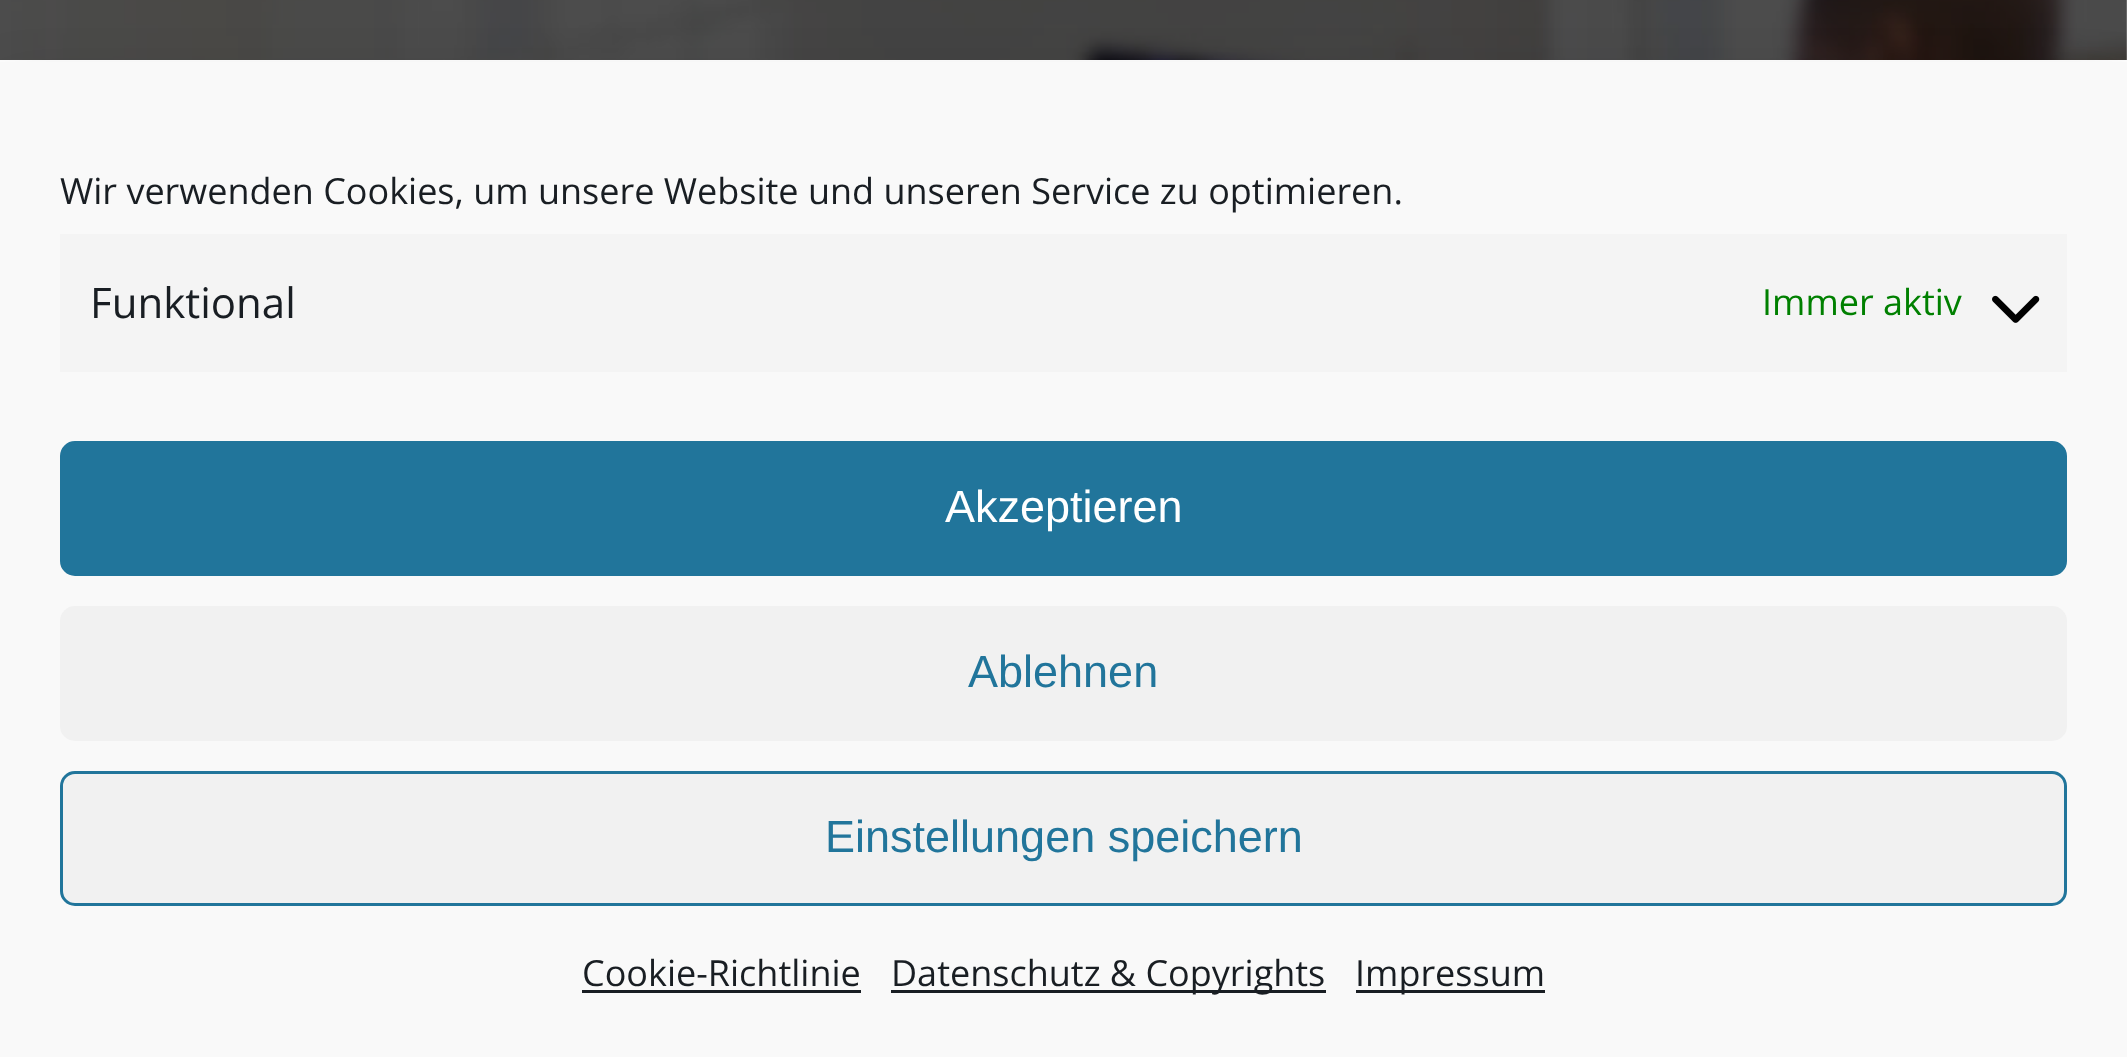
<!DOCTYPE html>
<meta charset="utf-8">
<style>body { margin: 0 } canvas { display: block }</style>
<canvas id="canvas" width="2127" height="1057"></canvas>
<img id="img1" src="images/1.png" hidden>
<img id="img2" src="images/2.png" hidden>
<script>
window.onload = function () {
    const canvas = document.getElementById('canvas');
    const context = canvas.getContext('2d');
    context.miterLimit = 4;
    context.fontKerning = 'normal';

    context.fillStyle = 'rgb(255, 255, 255)';
    context.fillRect(0, 0, 2127, 1057);
    context.drawImage(document.getElementById('img1'), 0, 0, 2127, 60);
    context.fillStyle = 'rgba(0, 0, 0, 0.19)';
    context.filter = 'blur(30px)';
    context.beginPath();
    context.rect(0, 90, 2127, 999);
    context.fill();
    context.filter = 'none';
    context.fillStyle = 'rgb(249, 249, 249)';
    context.fillRect(0, 62, 2127, 995);
    context.fillStyle = 'rgb(244, 244, 244)';
    context.fillRect(60, 234, 2007, 138);
    context.drawImage(document.getElementById('img2'), 1992, 295, 48, 28);
    context.fillStyle = 'rgb(33, 117, 155)';
    context.beginPath();
    context.roundRect(61.5, 442.5, 2004, 132, 13.5);
    context.fill();
    context.strokeStyle = 'rgb(33, 117, 155)';
    context.lineWidth = 3;
    context.stroke();
    context.fillStyle = 'rgb(241, 241, 241)';
    context.beginPath();
    context.roundRect(60, 606, 2007, 135, 15);
    context.fill();
    context.beginPath();
    context.roundRect(61.5, 772.5, 2004, 132, 13.5);
    context.fill();
    context.stroke();
    context.fillStyle = 'rgb(25, 30, 35)';
    context.fillRect(582, 990, 279, 3);
    context.fillRect(891, 990, 435, 3);
    context.fillRect(1356, 990, 189, 3);
    context.font = '36px Open Sans';
    context.fillText('Wir verwenden Cookies, um unsere Website und unseren Service zu optimieren.', 60, 204);
    context.font = '42px Open Sans';
    context.fillText('Funktional', 90, 318);
    context.font = '36px Open Sans';
    context.fillStyle = 'rgb(0, 128, 0)';
    context.fillText('Immer aktiv', 1762, 315);
    context.font = '45px Liberation Sans';
    context.fillStyle = 'rgb(255, 255, 255)';
    context.fillText('Akzeptieren', 945, 522);
    context.fillStyle = 'rgb(33, 117, 155)';
    context.fillText('Ablehnen', 968, 687);
    context.fillText('Einstellungen speichern', 825, 852);
    context.font = '36px Open Sans';
    context.fillStyle = 'rgb(25, 30, 35)';
    context.fillText('Cookie-Richtlinie', 582, 986);
    context.fillText('Datenschutz & Copyrights', 891, 986);
    context.fillText('Impressum', 1355, 986);
};
</script>
